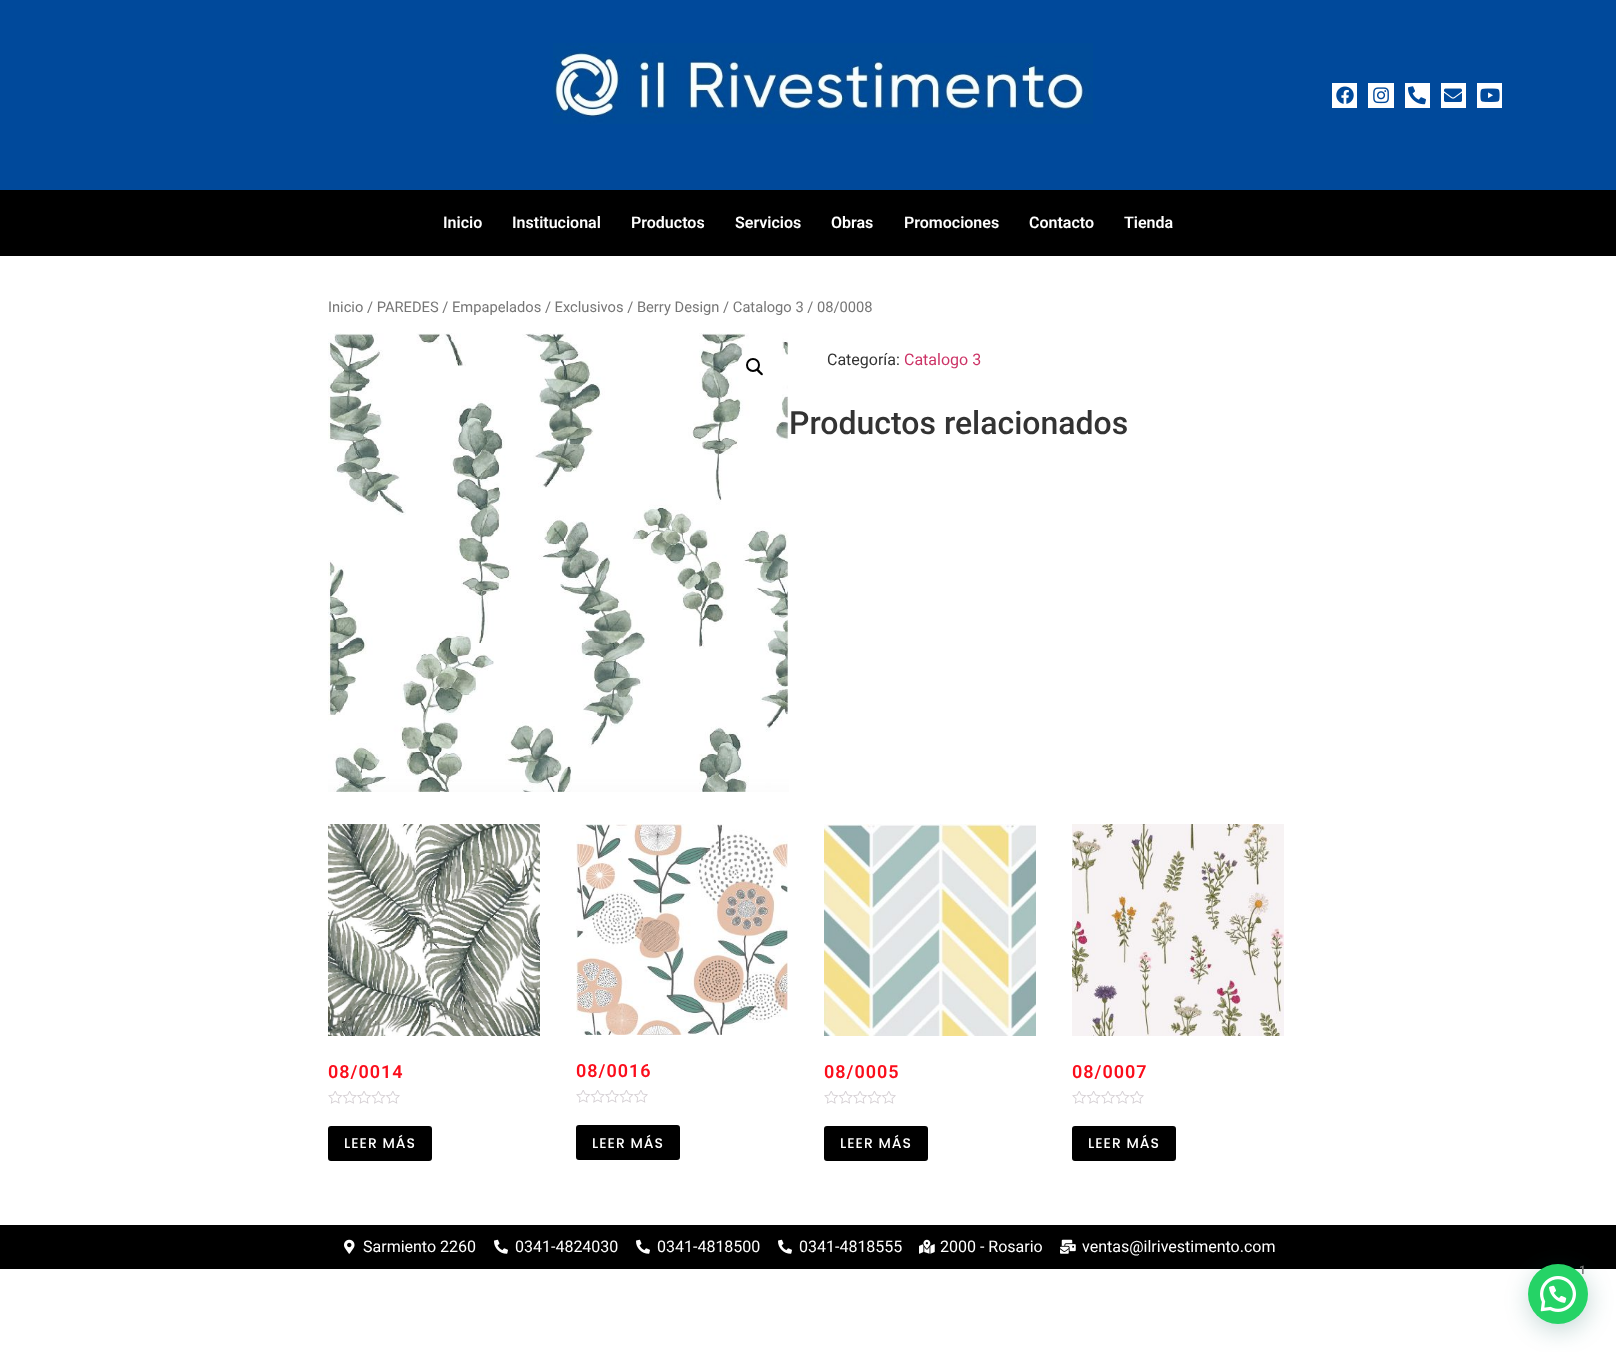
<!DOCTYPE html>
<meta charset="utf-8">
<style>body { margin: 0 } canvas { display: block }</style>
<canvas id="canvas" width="1616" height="1352"></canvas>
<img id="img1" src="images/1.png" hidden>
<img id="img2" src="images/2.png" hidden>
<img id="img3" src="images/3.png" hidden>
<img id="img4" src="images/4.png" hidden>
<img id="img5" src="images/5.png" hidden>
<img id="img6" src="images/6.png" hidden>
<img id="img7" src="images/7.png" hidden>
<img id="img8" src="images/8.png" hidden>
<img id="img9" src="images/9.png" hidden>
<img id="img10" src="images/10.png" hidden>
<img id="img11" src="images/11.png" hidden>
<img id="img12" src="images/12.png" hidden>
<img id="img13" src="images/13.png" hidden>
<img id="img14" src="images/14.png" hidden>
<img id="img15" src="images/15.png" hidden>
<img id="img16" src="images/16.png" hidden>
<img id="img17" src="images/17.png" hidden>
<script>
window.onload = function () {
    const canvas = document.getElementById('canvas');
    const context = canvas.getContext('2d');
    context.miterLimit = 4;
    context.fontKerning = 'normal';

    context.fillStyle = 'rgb(255, 255, 255)';
    context.fillRect(0, 0, 1616, 1352);
    context.fillStyle = 'rgb(0, 73, 155)';
    context.fillRect(0, 0, 1616, 190);
    context.drawImage(document.getElementById('img1'), 553, 43, 540, 81);
    context.fillStyle = 'rgb(255, 255, 255)';
    context.fillRect(1332, 83, 25, 25);
    context.drawImage(document.getElementById('img2'), 1336, 86, 18, 18);
    context.fillRect(1368, 83, 26, 25);
    context.drawImage(document.getElementById('img3'), 1373, 87, 16, 17);
    context.fillRect(1405, 83, 25, 25);
    context.drawImage(document.getElementById('img4'), 1408, 86, 18, 19);
    context.fillRect(1441, 83, 25, 25);
    context.drawImage(document.getElementById('img5'), 1444, 88, 18, 14);
    context.fillRect(1477, 83, 25, 25);
    context.drawImage(document.getElementById('img6'), 1480, 88, 20, 14);
    context.fillStyle = 'rgb(0, 0, 0)';
    context.fillRect(0, 190, 1616, 66);
    context.drawImage(document.getElementById('img7'), 328, 333, 461, 459);
    context.fillStyle = 'rgb(255, 255, 255)';
    context.beginPath();
    context.arc(755, 367, 18, 0, 2 * Math.PI);
    context.fill();
    context.beginPath();
    context.arc(753, 365, 6, 0, 2 * Math.PI);
    context.strokeStyle = 'rgb(0, 0, 0)';
    context.lineWidth = 2;
    context.stroke();
    context.fillStyle = 'rgb(0, 0, 0)';
    context.beginPath();
    context.moveTo(757, 369.5);
    context.bezierCurveTo(758, 368, 760, 371, 760.5, 371.5);
    context.bezierCurveTo(761, 372, 764, 374, 762.5, 375);
    context.bezierCurveTo(761.5, 376, 759.5, 373.5, 759, 373);
    context.bezierCurveTo(758.5, 372.5, 756, 370.5, 757, 369.5);
    context.closePath();
    context.fill();
    context.drawImage(document.getElementById('img8'), 328, 824, 212, 212);
    context.drawImage(document.getElementById('img9'), 328, 1091, 72, 13);
    context.beginPath();
    context.roundRect(329, 1127, 102, 33, 2);
    context.fill();
    context.stroke();
    context.drawImage(document.getElementById('img10'), 576, 824, 212, 211);
    context.drawImage(document.getElementById('img9'), 576, 1090, 72, 13);
    context.beginPath();
    context.roundRect(577, 1126, 102, 33, 2);
    context.fill();
    context.stroke();
    context.drawImage(document.getElementById('img11'), 824, 824, 212, 212);
    context.drawImage(document.getElementById('img9'), 824, 1091, 72, 13);
    context.beginPath();
    context.roundRect(825, 1127, 102, 33, 2);
    context.fill();
    context.stroke();
    context.drawImage(document.getElementById('img12'), 1072, 824, 212, 212);
    context.drawImage(document.getElementById('img9'), 1072, 1091, 72, 13);
    context.beginPath();
    context.roundRect(1073, 1127, 102, 33, 2);
    context.fill();
    context.stroke();
    context.fillRect(0, 1225, 1616, 44);
    context.drawImage(document.getElementById('img13'), 344, 1239, 11, 15);
    context.drawImage(document.getElementById('img14'), 494, 1239, 14, 15);
    context.drawImage(document.getElementById('img14'), 636, 1239, 14, 15);
    context.drawImage(document.getElementById('img14'), 778, 1239, 14, 15);
    context.drawImage(document.getElementById('img15'), 919, 1239, 16, 15);
    context.drawImage(document.getElementById('img16'), 1060, 1239, 16, 15);
    context.fillStyle = 'rgba(7, 94, 84, 0.24)';
    context.filter = 'blur(12px)';
    context.beginPath();
    context.roundRect(1529, 1270, 60, 60, 30);
    context.fill();
    context.filter = 'none';
    context.fillStyle = 'rgb(37, 211, 102)';
    context.beginPath();
    context.arc(1558, 1294, 30, 0, 2 * Math.PI);
    context.fill();
    context.drawImage(document.getElementById('img17'), 1540, 1276, 36, 36);
    context.font = '600 16px Roboto';
    context.fillStyle = 'rgb(255, 255, 255)';
    context.fillText('Inicio', 443, 228);
    context.fillText('Institucional', 512, 228);
    context.fillText('Productos', 631, 228);
    context.fillText('Servicios', 735, 228);
    context.fillText('Obras', 831, 228);
    context.fillText('Promociones', 904, 228);
    context.fillText('Contacto', 1029, 228);
    context.fillText('Tienda', 1124, 228);
    context.font = '14.7px Roboto';
    context.fillStyle = 'rgb(118, 118, 118)';
    context.fillText('Inicio / PAREDES / Empapelados / Exclusivos / Berry Design / Catalogo 3 / 08/0008', 328, 312);
    context.font = '16px Roboto';
    context.fillStyle = 'rgb(51, 51, 51)';
    context.fillText('Categoría:', 827, 365);
    context.fillStyle = 'rgb(204, 51, 102)';
    context.fillText('Catalogo 3', 904, 365);
    context.font = '500 32px Roboto';
    context.fillStyle = 'rgb(51, 51, 51)';
    context.fillText('Productos relacionados', 789, 434);
    context.letterSpacing = '1px';
    context.font = '600 18px Roboto';
    context.fillStyle = 'rgb(251, 13, 27)';
    context.fillText('08/0014', 328, 1078);
    context.font = '500 14px Poppins';
    context.fillStyle = 'rgb(255, 255, 255)';
    context.fillText('LEER MÁS', 344, 1148);
    context.font = '600 18px Roboto';
    context.fillStyle = 'rgb(251, 13, 27)';
    context.fillText('08/0016', 576, 1077);
    context.font = '500 14px Poppins';
    context.fillStyle = 'rgb(255, 255, 255)';
    context.fillText('LEER MÁS', 592, 1148);
    context.font = '600 18px Roboto';
    context.fillStyle = 'rgb(251, 13, 27)';
    context.fillText('08/0005', 824, 1078);
    context.font = '500 14px Poppins';
    context.fillStyle = 'rgb(255, 255, 255)';
    context.fillText('LEER MÁS', 840, 1148);
    context.font = '600 18px Roboto';
    context.fillStyle = 'rgb(251, 13, 27)';
    context.fillText('08/0007', 1072, 1078);
    context.font = '500 14px Poppins';
    context.fillStyle = 'rgb(255, 255, 255)';
    context.fillText('LEER MÁS', 1088, 1148);
    context.letterSpacing = '0px';
    context.font = '16px Roboto';
    context.fillText('Sarmiento 2260', 363, 1252);
    context.fillText('0341-4824030', 515, 1252);
    context.fillText('0341-4818500', 657, 1252);
    context.fillText('0341-4818555', 799, 1252);
    context.fillText('2000 - Rosario', 940, 1252);
    context.fillText('ventas@ilrivestimento.com', 1082, 1252);
    context.font = '600 12px Roboto';
    context.fillStyle = 'rgb(118, 118, 118)';
    context.fillText('1', 1579, 1274);
};
</script>
